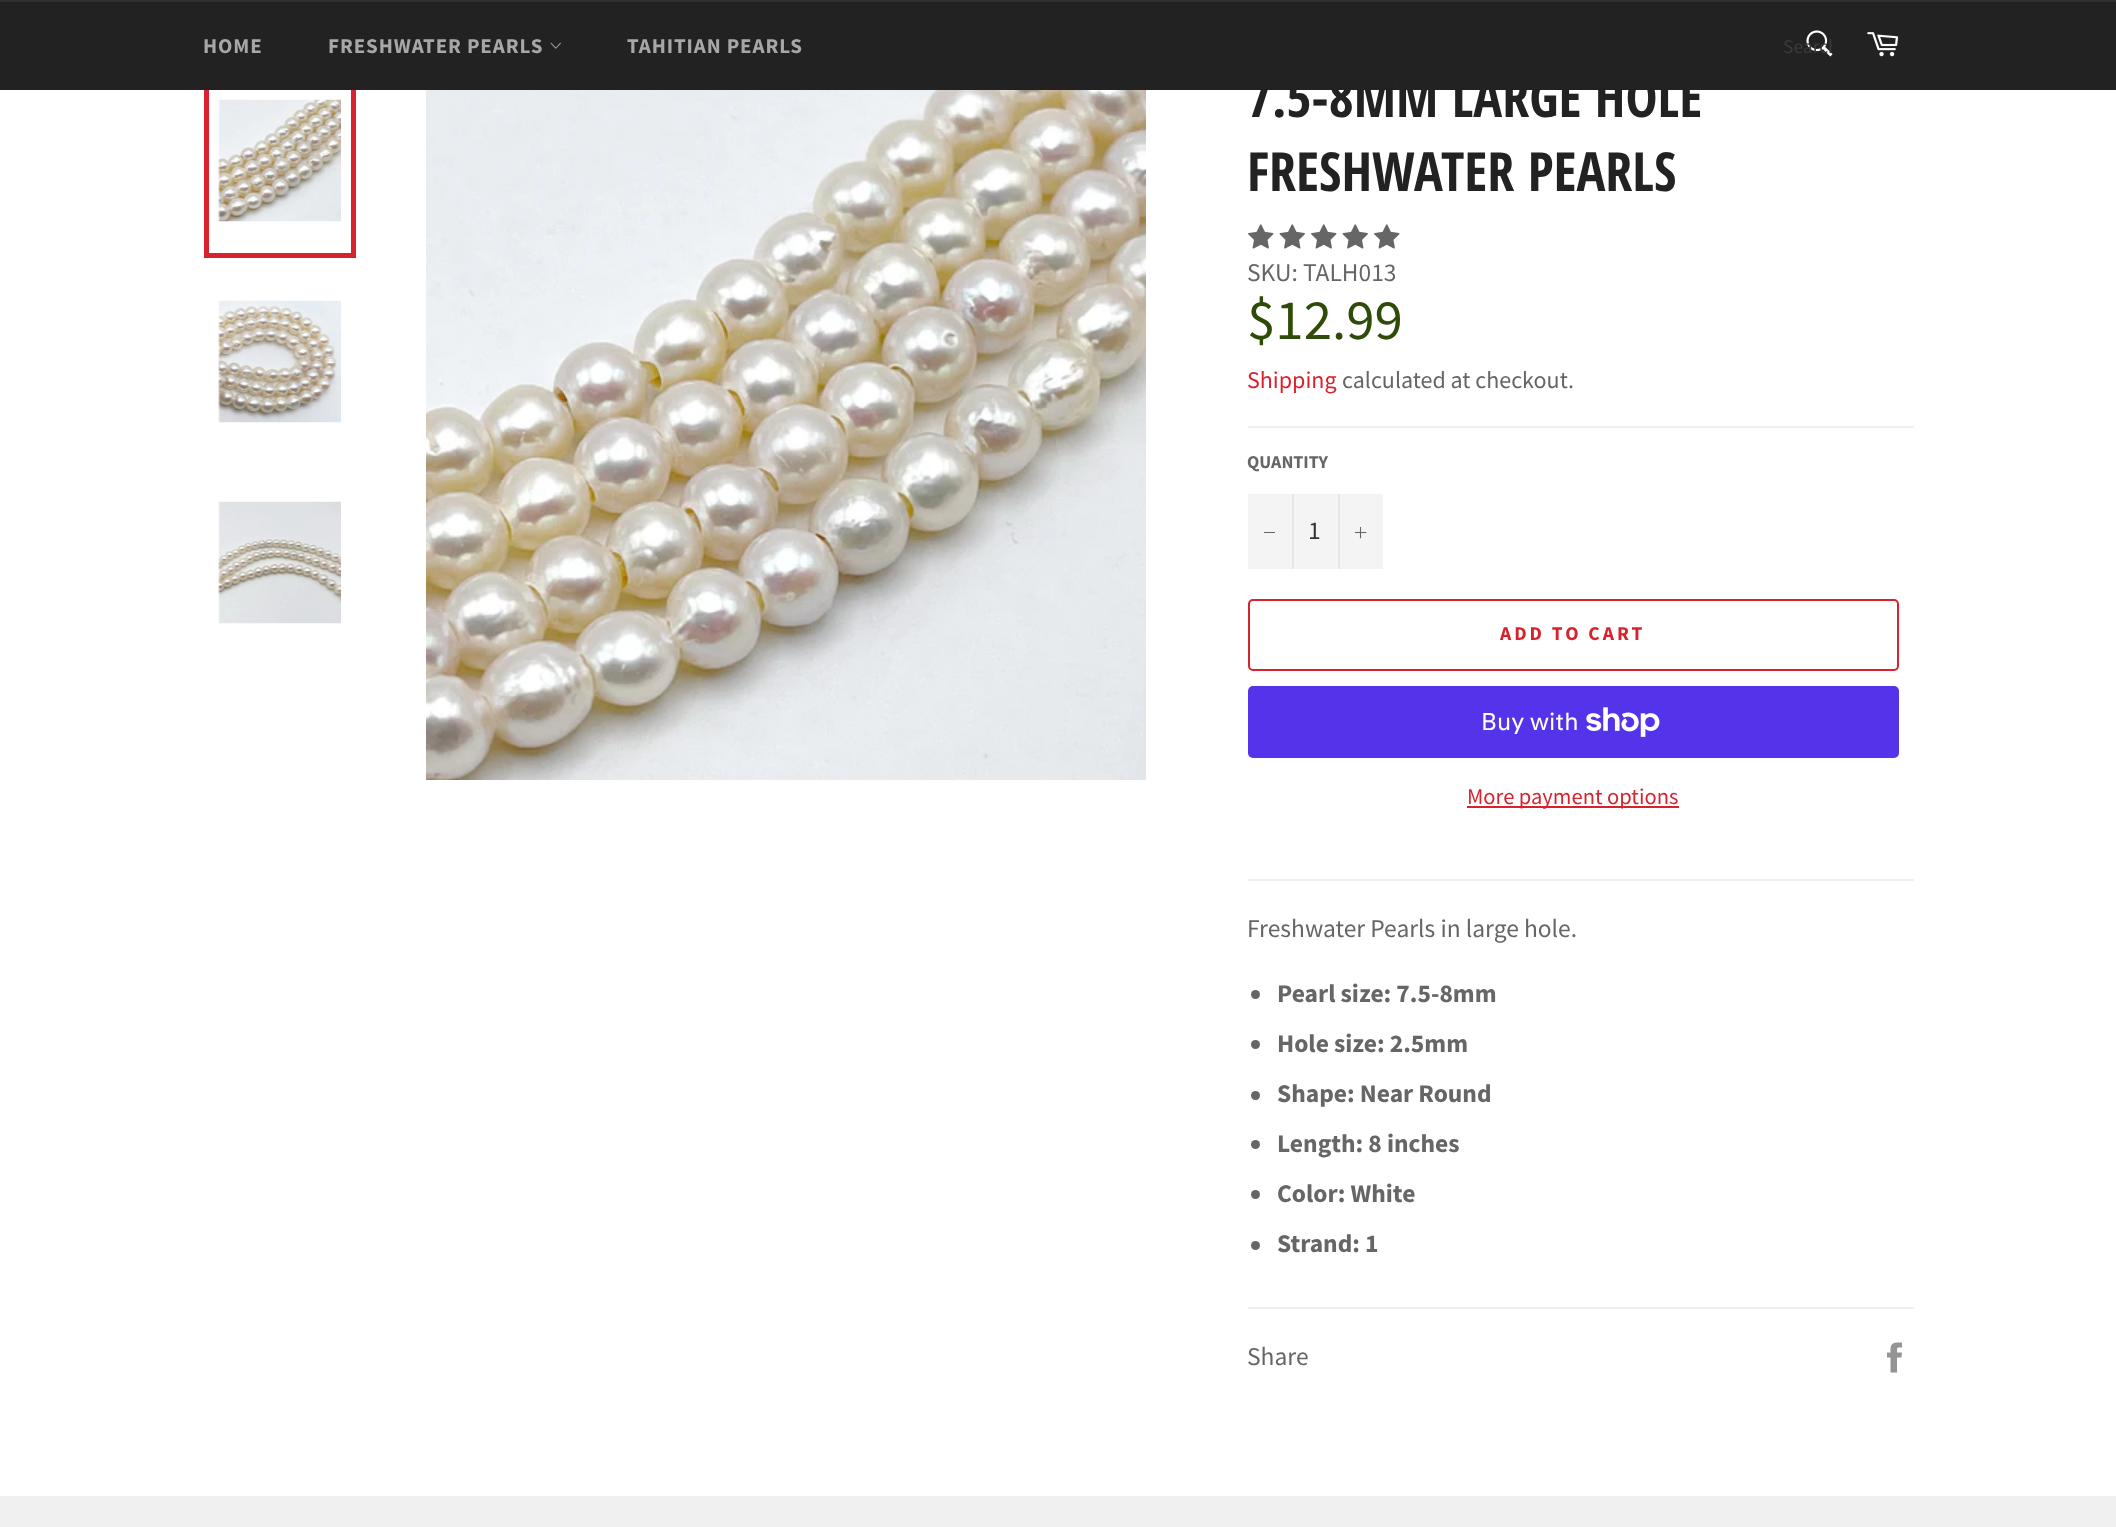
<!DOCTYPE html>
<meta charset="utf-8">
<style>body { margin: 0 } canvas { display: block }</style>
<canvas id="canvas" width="2116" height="1527"></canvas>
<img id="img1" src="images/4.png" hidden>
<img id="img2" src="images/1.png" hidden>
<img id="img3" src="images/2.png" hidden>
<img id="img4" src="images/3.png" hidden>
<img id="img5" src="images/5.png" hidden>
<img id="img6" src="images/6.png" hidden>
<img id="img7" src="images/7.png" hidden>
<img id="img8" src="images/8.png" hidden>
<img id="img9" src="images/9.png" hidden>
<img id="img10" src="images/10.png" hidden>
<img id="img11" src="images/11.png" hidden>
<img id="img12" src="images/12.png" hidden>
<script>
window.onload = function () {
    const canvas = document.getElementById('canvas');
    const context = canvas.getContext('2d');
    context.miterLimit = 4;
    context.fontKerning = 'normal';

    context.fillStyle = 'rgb(255, 255, 255)';
    context.fillRect(0, 0, 2116, 1527);
    context.drawImage(document.getElementById('img1'), 218, 99, 123, 123);
    context.strokeStyle = 'rgb(216, 35, 47)';
    context.lineWidth = 5;
    context.strokeRect(206.5, 65.5, 147, 190);
    context.fillStyle = 'rgb(34, 34, 34)';
    context.fillRect(0, 2, 2116, 88);
    context.fillStyle = 'rgb(47, 47, 47)';
    context.fillRect(0, 0, 2116, 2);
    context.drawImage(document.getElementById('img2'), 550, 42, 11, 7);
    context.drawImage(document.getElementById('img3'), 1806, 30, 27, 27);
    context.drawImage(document.getElementById('img4'), 1867, 32, 31, 25);
    context.drawImage(document.getElementById('img5'), 218, 300, 123, 123);
    context.drawImage(document.getElementById('img6'), 218, 501, 123, 123);
    context.drawImage(document.getElementById('img7'), 426, 90, 720, 690);
    context.drawImage(document.getElementById('img8'), 1248, 224, 26, 25);
    context.drawImage(document.getElementById('img9'), 1279, 224, 26, 25);
    context.drawImage(document.getElementById('img8'), 1311, 224, 26, 25);
    context.drawImage(document.getElementById('img9'), 1342, 224, 26, 25);
    context.drawImage(document.getElementById('img8'), 1374, 224, 26, 25);
    context.fillStyle = 'rgb(240, 240, 240)';
    context.fillRect(1248, 426, 666, 2);
    context.fillStyle = 'rgb(244, 244, 244)';
    context.fillRect(1248, 494, 135, 75);
    context.fillStyle = 'rgb(231, 231, 231)';
    context.fillRect(1292, 494, 2, 75);
    context.fillStyle = 'rgb(102, 102, 102)';
    context.fillRect(1264, 532, 11, 1);
    context.fillStyle = 'rgb(231, 231, 231)';
    context.fillRect(1338, 494, 2, 75);
    context.drawImage(document.getElementById('img10'), 1355, 527, 12, 12);
    context.beginPath();
    context.roundRect(1249, 600, 649, 70, 4);
    context.lineWidth = 2;
    context.stroke();
    context.fillStyle = 'rgb(84, 51, 235)';
    context.beginPath();
    context.roundRect(1248, 686, 651, 72, 5);
    context.fill();
    context.drawImage(document.getElementById('img11'), 1586, 707, 74, 30);
    context.fillStyle = 'rgb(216, 35, 47)';
    context.fillRect(1467, 806, 212, 2);
    context.fillStyle = 'rgb(240, 240, 240)';
    context.fillRect(1248, 879, 666, 2);
    context.fillStyle = 'rgb(102, 102, 102)';
    context.beginPath();
    context.arc(1255.5, 994.5, 4.5, 0, 2 * Math.PI);
    context.fill();
    context.beginPath();
    context.arc(1255.5, 1044.5, 4.5, 0, 2 * Math.PI);
    context.fill();
    context.beginPath();
    context.arc(1255.5, 1095.5, 4.5, 0, 2 * Math.PI);
    context.fill();
    context.beginPath();
    context.arc(1255.5, 1144.5, 4.5, 0, 2 * Math.PI);
    context.fill();
    context.beginPath();
    context.arc(1255.5, 1194.5, 4.5, 0, 2 * Math.PI);
    context.fill();
    context.beginPath();
    context.arc(1255.5, 1245.5, 4.5, 0, 2 * Math.PI);
    context.fill();
    context.fillStyle = 'rgb(240, 240, 240)';
    context.fillRect(1248, 1307, 666, 2);
    context.drawImage(document.getElementById('img12'), 1887, 1342, 15, 31);
    context.fillRect(0, 1496, 2116, 31);
    context.letterSpacing = '0.9px';
    context.font = 'bold 21px Source Sans Pro';
    context.fillStyle = 'rgb(167, 167, 167)';
    context.fillText('HOME', 203, 53);
    context.fillText('FRESHWATER PEARLS', 328, 53);
    context.fillText('TAHITIAN PEARLS', 627, 53);
    context.save();
    context.beginPath();
    context.rect(1784, 33, 48, 26);
    context.clip();
    context.letterSpacing = '0px';
    context.font = '19.5px Source Sans Pro';
    context.fillStyle = 'rgb(59, 59, 59)';
    context.fillText('Search', 1783, 53);
    context.restore();
    context.letterSpacing = '0px';
    context.font = 'bold 54px Open Sans Condensed';
    context.fillStyle = 'rgb(34, 34, 34)';
    context.fillText('7.5-8MM LARGE HOLE', 1247, 117);
    context.fillText('FRESHWATER PEARLS', 1247, 191);
    context.font = '25.5px Source Sans Pro';
    context.fillStyle = 'rgb(102, 102, 102)';
    context.fillText('SKU: TALH013', 1247, 281);
    context.font = '57px Source Sans Pro';
    context.fillStyle = 'rgb(47, 75, 8)';
    context.fillText('$12.99', 1247, 339);
    context.font = '24px Source Sans Pro';
    context.fillStyle = 'rgb(216, 35, 47)';
    context.fillText('Shipping', 1247, 388);
    context.fillStyle = 'rgb(102, 102, 102)';
    context.fillText('calculated at checkout.', 1342, 388);
    context.font = 'bold 18px Source Sans Pro';
    context.fillText('QUANTITY', 1247, 468);
    context.font = '25.5px Source Sans Pro';
    context.fillStyle = 'rgb(51, 51, 51)';
    context.fillText('1', 1308, 539);
    context.letterSpacing = '3px';
    context.font = 'bold 19.5px Source Sans Pro';
    context.fillStyle = 'rgb(216, 35, 47)';
    context.fillText('ADD TO CART', 1500, 640);
    context.letterSpacing = '0px';
    context.font = '24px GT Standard';
    context.fillStyle = 'rgb(255, 255, 255)';
    context.fillText('Buy with', 1481, 730);
    context.font = '22.5px Source Sans Pro';
    context.fillStyle = 'rgb(216, 35, 47)';
    context.fillText('More payment options', 1467, 804);
    context.font = '25.5px Source Sans Pro';
    context.fillStyle = 'rgb(102, 102, 102)';
    context.fillText('Freshwater Pearls in large hole.', 1247, 937);
    context.font = 'bold 25.5px Source Sans Pro';
    context.fillText('Pearl size: 7.5-8mm', 1277, 1002);
    context.fillText('Hole size: 2.5mm', 1277, 1052);
    context.fillText('Shape: Near Round', 1277, 1102);
    context.fillText('Length: 8 inches', 1277, 1152);
    context.fillText('Color: White', 1277, 1202);
    context.fillText('Strand: 1', 1277, 1252);
    context.font = '25.5px Source Sans Pro';
    context.fillText('Share', 1247, 1365);
};
</script>
